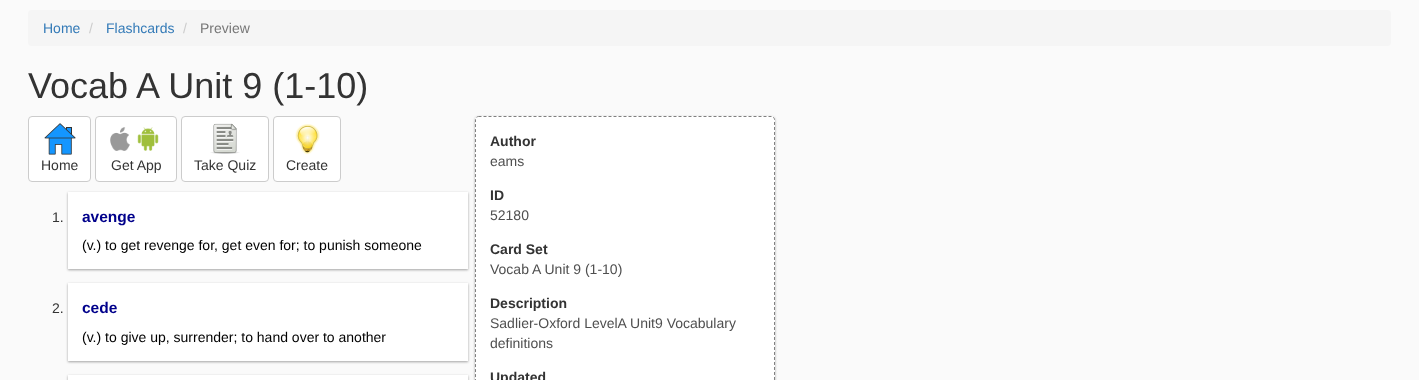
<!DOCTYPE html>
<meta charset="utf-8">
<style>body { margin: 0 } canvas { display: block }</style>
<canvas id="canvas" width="1419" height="380"></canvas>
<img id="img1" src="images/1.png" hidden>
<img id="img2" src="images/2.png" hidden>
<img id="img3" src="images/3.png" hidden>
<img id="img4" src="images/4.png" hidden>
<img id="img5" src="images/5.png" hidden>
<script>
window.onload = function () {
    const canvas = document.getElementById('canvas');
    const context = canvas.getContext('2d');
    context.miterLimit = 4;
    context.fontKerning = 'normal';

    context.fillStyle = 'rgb(250, 250, 250)';
    context.fillRect(0, 0, 1419, 380);
    context.fillStyle = 'rgb(245, 245, 245)';
    context.beginPath();
    context.roundRect(28, 10, 1363, 36, 4);
    context.fill();
    context.fillStyle = 'rgb(255, 255, 255)';
    context.beginPath();
    context.roundRect(28.5, 116.5, 62, 65, 3.5);
    context.fill();
    context.strokeStyle = 'rgb(204, 204, 204)';
    context.stroke();
    context.drawImage(document.getElementById('img1'), 44, 123, 32, 32);
    context.beginPath();
    context.roundRect(95.5, 116.5, 81, 65, 3.5);
    context.fill();
    context.stroke();
    context.drawImage(document.getElementById('img2'), 110, 127, 20, 24);
    context.drawImage(document.getElementById('img3'), 137, 127, 22, 24);
    context.beginPath();
    context.roundRect(181.5, 116.5, 87, 65, 3.5);
    context.fill();
    context.stroke();
    context.drawImage(document.getElementById('img4'), 210, 123, 30, 31);
    context.beginPath();
    context.roundRect(273.5, 116.5, 67, 65, 3.5);
    context.fill();
    context.stroke();
    context.drawImage(document.getElementById('img5'), 295, 124, 25, 31);
    context.fillStyle = 'rgba(0, 0, 0, 0.24)';
    context.filter = 'blur(1px)';
    context.beginPath();
    context.rect(68, 193, 400, 77);
    context.fill();
    context.filter = 'none';
    context.fillStyle = 'rgba(0, 0, 0, 0.12)';
    context.filter = 'blur(1.5px)';
    context.beginPath();
    context.rect(68, 193, 400, 77);
    context.fill();
    context.filter = 'none';
    context.fillStyle = 'rgb(255, 255, 255)';
    context.fillRect(68, 192, 400, 77);
    context.fillStyle = 'rgba(0, 0, 0, 0.24)';
    context.filter = 'blur(1px)';
    context.beginPath();
    context.rect(68, 284, 400, 78);
    context.fill();
    context.filter = 'none';
    context.fillStyle = 'rgba(0, 0, 0, 0.12)';
    context.filter = 'blur(1.5px)';
    context.beginPath();
    context.rect(68, 284, 400, 78);
    context.fill();
    context.filter = 'none';
    context.fillStyle = 'rgb(255, 255, 255)';
    context.fillRect(68, 283, 400, 78);
    context.fillStyle = 'rgba(0, 0, 0, 0.24)';
    context.filter = 'blur(1px)';
    context.beginPath();
    context.rect(68, 376, 400, 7);
    context.fill();
    context.filter = 'none';
    context.fillStyle = 'rgba(0, 0, 0, 0.12)';
    context.filter = 'blur(1.5px)';
    context.beginPath();
    context.rect(68, 376, 400, 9);
    context.fill();
    context.filter = 'none';
    context.fillStyle = 'rgb(255, 255, 255)';
    context.fillRect(68, 375, 400, 5);
    context.fillStyle = 'rgba(0, 0, 0, 0.24)';
    context.filter = 'blur(1px)';
    context.beginPath();
    context.roundRect(475, 117, 300, 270, 4);
    context.fill();
    context.filter = 'none';
    context.fillStyle = 'rgba(0, 0, 0, 0.12)';
    context.filter = 'blur(1.5px)';
    context.beginPath();
    context.roundRect(475, 117, 300, 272, 4);
    context.fill();
    context.filter = 'none';
    context.fillStyle = 'rgb(255, 255, 255)';
    context.beginPath();
    context.roundRect(475, 116, 300, 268, 4);
    context.fill();
    context.beginPath();
    context.moveTo(478.5, 116.5);
    context.lineTo(771.5, 116.5);
    context.bezierCurveTo(773, 116.5, 774.5, 118, 774.5, 119.5);
    context.lineTo(774.5, 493.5);
    context.bezierCurveTo(774.5, 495, 773, 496.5, 771.5, 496.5);
    context.lineTo(478.5, 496.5);
    context.bezierCurveTo(477, 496.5, 475.5, 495, 475.5, 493.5);
    context.lineTo(475.5, 119.5);
    context.bezierCurveTo(475.5, 118, 477, 116.5, 478.5, 116.5);
    context.closePath();
    context.strokeStyle = 'rgb(128, 128, 128)';
    context.setLineDash([3, 2]);
    context.stroke();
    context.font = '14px Liberation Sans';
    context.fillStyle = 'rgb(51, 122, 183)';
    context.fillText('Home', 43, 33);
    context.fillStyle = 'rgb(204, 204, 204)';
    context.fillText('/', 89, 33);
    context.fillStyle = 'rgb(51, 122, 183)';
    context.fillText('Flashcards', 106, 33);
    context.fillStyle = 'rgb(204, 204, 204)';
    context.fillText('/', 183, 33);
    context.fillStyle = 'rgb(119, 119, 119)';
    context.fillText('Preview', 200, 33);
    context.font = '36px Liberation Sans';
    context.fillStyle = 'rgb(51, 51, 51)';
    context.fillText('Vocab A Unit 9 (1-10)', 28, 98);
    context.font = '14px Liberation Sans';
    context.fillText('Home', 41, 170);
    context.fillText('Get App', 111, 170);
    context.fillText('Take Quiz', 194, 170);
    context.fillText('Create', 286, 170);
    context.fillText('1.', 52, 222);
    context.font = 'bold 15.5px Liberation Sans';
    context.fillStyle = 'rgb(0, 0, 139)';
    context.fillText('avenge', 82, 222);
    context.font = '14px Liberation Sans';
    context.fillStyle = 'rgb(0, 0, 0)';
    context.fillText('(v.) to get revenge for, get even for; to punish someone', 82, 250);
    context.fillStyle = 'rgb(51, 51, 51)';
    context.fillText('2.', 52, 313);
    context.font = 'bold 15.5px Liberation Sans';
    context.fillStyle = 'rgb(0, 0, 139)';
    context.fillText('cede', 82, 313);
    context.font = '14px Liberation Sans';
    context.fillStyle = 'rgb(0, 0, 0)';
    context.fillText('(v.) to give up, surrender; to hand over to another', 82, 342);
    context.font = 'bold 14px Liberation Sans';
    context.fillStyle = 'rgb(51, 51, 51)';
    context.fillText('Author', 490, 146);
    context.font = '14px Liberation Sans';
    context.fillStyle = 'rgb(79, 79, 79)';
    context.fillText('eams', 490, 166);
    context.font = 'bold 14px Liberation Sans';
    context.fillStyle = 'rgb(51, 51, 51)';
    context.fillText('ID', 490, 200);
    context.font = '14px Liberation Sans';
    context.fillStyle = 'rgb(79, 79, 79)';
    context.fillText('52180', 490, 220);
    context.font = 'bold 14px Liberation Sans';
    context.fillStyle = 'rgb(51, 51, 51)';
    context.fillText('Card Set', 490, 254);
    context.font = '14px Liberation Sans';
    context.fillStyle = 'rgb(79, 79, 79)';
    context.fillText('Vocab A Unit 9 (1-10)', 490, 274);
    context.font = 'bold 14px Liberation Sans';
    context.fillStyle = 'rgb(51, 51, 51)';
    context.fillText('Description', 490, 308);
    context.font = '14px Liberation Sans';
    context.fillStyle = 'rgb(79, 79, 79)';
    context.fillText('Sadlier-Oxford LevelA Unit9 Vocabulary', 490, 328);
    context.fillText('definitions', 490, 348);
    context.font = 'bold 14px Liberation Sans';
    context.fillStyle = 'rgb(51, 51, 51)';
    context.fillText('Updated', 490, 382);
};
</script>
